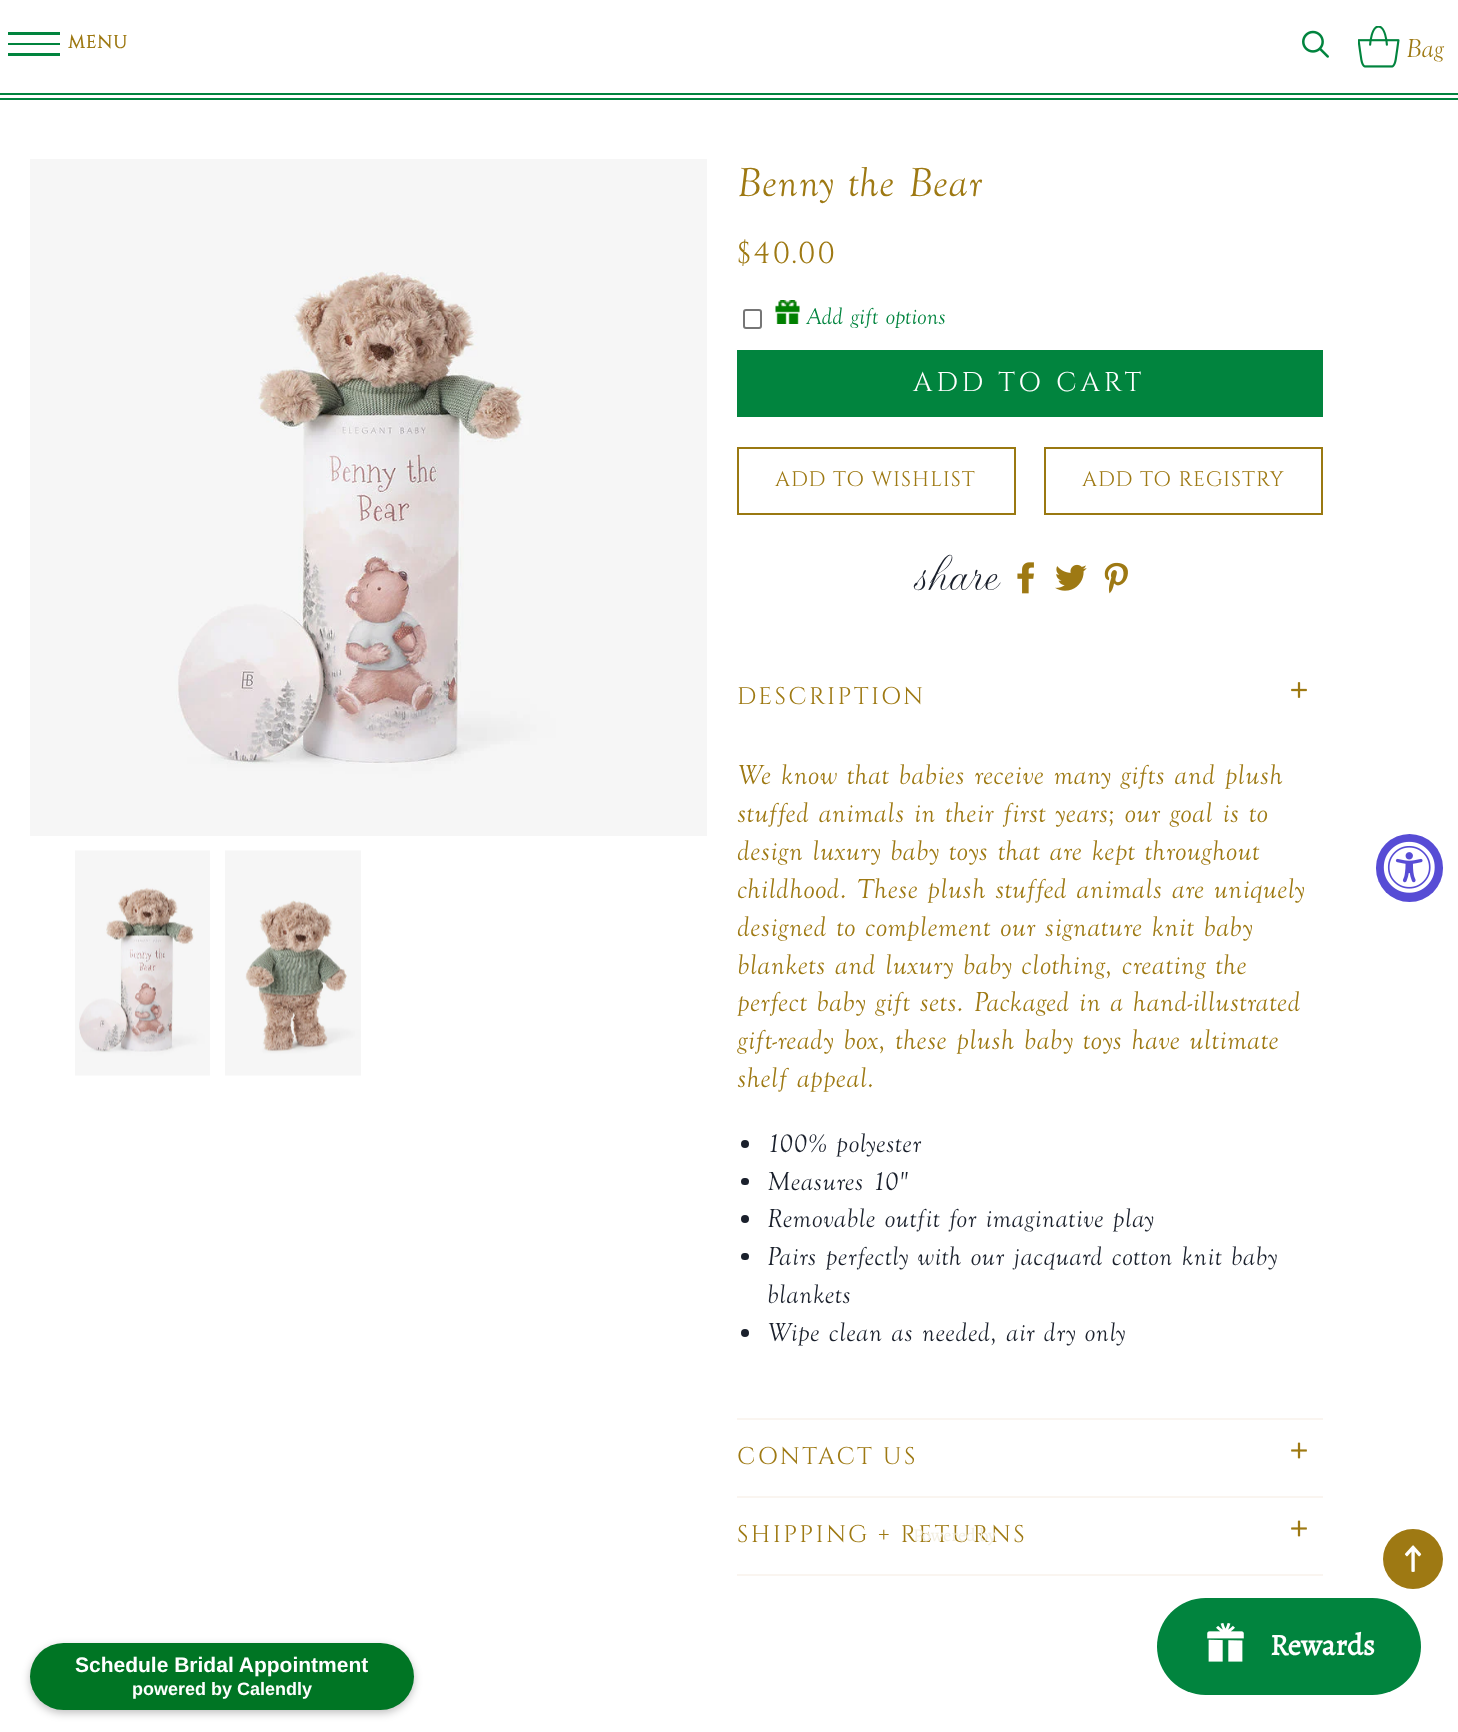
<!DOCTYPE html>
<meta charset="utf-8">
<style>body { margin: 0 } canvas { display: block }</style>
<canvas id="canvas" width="1458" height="1732"></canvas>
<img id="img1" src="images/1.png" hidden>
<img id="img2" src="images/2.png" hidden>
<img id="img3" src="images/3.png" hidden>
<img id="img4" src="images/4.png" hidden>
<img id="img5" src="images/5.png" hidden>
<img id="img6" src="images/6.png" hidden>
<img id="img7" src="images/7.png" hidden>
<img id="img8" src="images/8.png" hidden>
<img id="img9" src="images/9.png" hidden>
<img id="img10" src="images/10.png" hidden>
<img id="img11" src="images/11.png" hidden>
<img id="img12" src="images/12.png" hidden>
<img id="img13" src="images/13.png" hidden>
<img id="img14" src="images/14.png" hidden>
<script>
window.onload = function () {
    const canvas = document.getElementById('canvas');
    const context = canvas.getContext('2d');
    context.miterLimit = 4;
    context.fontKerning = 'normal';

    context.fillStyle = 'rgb(255, 255, 255)';
    context.fillRect(0, 0, 1458, 1732);
    context.fillStyle = 'rgb(1, 132, 62)';
    context.fillRect(8, 32, 52, 3);
    context.fillRect(8, 43, 52, 2);
    context.fillRect(8, 53, 52, 3);
    context.drawImage(document.getElementById('img1'), 1302, 30, 27, 28);
    context.drawImage(document.getElementById('img2'), 1358, 26, 42, 42);
    context.fillRect(0, 93, 1458, 2);
    context.fillRect(0, 98, 1458, 2);
    context.drawImage(document.getElementById('img3'), 30, 159, 677, 677);
    context.drawImage(document.getElementById('img4'), 75, 850, 135, 226);
    context.drawImage(document.getElementById('img5'), 225, 850, 136, 226);
    context.beginPath();
    context.roundRect(744, 310, 17, 18, 2);
    context.strokeStyle = 'rgb(118, 118, 118)';
    context.lineWidth = 2;
    context.stroke();
    context.drawImage(document.getElementById('img6'), 775, 300, 25, 24);
    context.fillRect(737, 350, 586, 67);
    context.strokeStyle = 'rgb(154, 121, 17)';
    context.strokeRect(738, 448, 277, 66);
    context.strokeRect(1045, 448, 277, 66);
    context.drawImage(document.getElementById('img7'), 1017, 562, 17, 32);
    context.drawImage(document.getElementById('img8'), 1055, 564, 32, 27);
    context.drawImage(document.getElementById('img9'), 1104, 562, 24, 32);
    context.fillStyle = 'rgb(250, 245, 240)';
    context.fillRect(737, 1418, 586, 2);
    context.drawImage(document.getElementById('img10'), 1291, 682, 16, 16);
    context.fillStyle = 'rgb(26, 32, 44)';
    context.beginPath();
    context.arc(745, 1144, 4, 0, 2 * Math.PI);
    context.fill();
    context.beginPath();
    context.roundRect(741, 1178, 8, 7, 3.5);
    context.fill();
    context.beginPath();
    context.arc(745, 1219, 4, 0, 2 * Math.PI);
    context.fill();
    context.beginPath();
    context.roundRect(741, 1253, 8, 7, 3.5);
    context.fill();
    context.beginPath();
    context.arc(745, 1333, 4, 0, 2 * Math.PI);
    context.fill();
    context.fillStyle = 'rgb(250, 245, 240)';
    context.fillRect(737, 1496, 586, 2);
    context.drawImage(document.getElementById('img11'), 1291, 1442, 16, 17);
    context.fillRect(737, 1574, 586, 2);
    context.drawImage(document.getElementById('img11'), 1291, 1520, 16, 17);
    context.fillStyle = 'rgb(87, 76, 213)';
    context.beginPath();
    context.roundRect(1376, 834, 67, 68, 33.5);
    context.fill();
    context.drawImage(document.getElementById('img12'), 1383, 841, 52, 52);
    context.fillStyle = 'rgb(1, 132, 62)';
    context.beginPath();
    context.roundRect(1157, 1598, 264, 97, 48.5);
    context.fill();
    context.drawImage(document.getElementById('img13'), 1207, 1623, 37, 39);
    context.fillStyle = 'rgb(158, 121, 19)';
    context.beginPath();
    context.arc(1413, 1559, 30, 0, 2 * Math.PI);
    context.fill();
    context.drawImage(document.getElementById('img14'), 1404, 1545, 18, 27);
    context.fillStyle = 'rgba(0, 0, 0, 0.25)';
    context.filter = 'blur(4px)';
    context.beginPath();
    context.roundRect(30, 1646, 384, 67, 33.5);
    context.fill();
    context.filter = 'none';
    context.fillStyle = 'rgb(0, 117, 36)';
    context.beginPath();
    context.roundRect(30, 1643, 384, 67, 33.5);
    context.fill();
    context.letterSpacing = '1px';
    context.font = 'bold 18px Cinzel';
    context.fillStyle = 'rgb(158, 121, 19)';
    context.fillText('MENU', 68, 48);
    context.letterSpacing = '0px';
    context.font = 'italic 27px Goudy';
    context.fillText('Bag', 1406, 57);
    context.letterSpacing = '0.8px';
    context.font = 'italic 42px Goudy';
    context.fillText('Benny the Bear', 737, 196);
    context.letterSpacing = '2px';
    context.font = '30px Cinzel';
    context.fillText('$40.00', 737, 263);
    context.letterSpacing = '0px';
    context.font = 'italic 24px Goudy';
    context.fillStyle = 'rgb(1, 132, 62)';
    context.fillText('Add gift options', 806, 324);
    context.letterSpacing = '4px';
    context.font = '27px Cinzel';
    context.fillStyle = 'rgb(255, 255, 255)';
    context.fillText('ADD TO CART', 913, 391);
    context.letterSpacing = '1px';
    context.font = '21px Cinzel';
    context.fillStyle = 'rgb(158, 121, 19)';
    context.fillText('ADD TO WISHLIST', 775, 486);
    context.fillText('ADD TO REGISTRY', 1082, 486);
    context.letterSpacing = '0px';
    context.font = '500 52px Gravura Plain';
    context.fillStyle = 'rgb(26, 32, 44)';
    context.fillText('share', 914, 590);
    context.letterSpacing = '2.4px';
    context.font = '24px Cinzel';
    context.fillStyle = 'rgb(158, 121, 19)';
    context.fillText('DESCRIPTION', 737, 704);
    context.letterSpacing = '0.55px';
    context.font = 'italic 28.5px Goudy';
    context.fillText('We know that babies receive many gifts and plush', 737, 784);
    context.fillText('stuffed animals in their first years; our goal is to', 737, 822);
    context.fillText('design luxury baby toys that are kept throughout', 737, 860);
    context.fillText('childhood. These plush stuffed animals are uniquely', 737, 898);
    context.fillText('designed to complement our signature knit baby', 737, 936);
    context.fillText('blankets and luxury baby clothing, creating the', 737, 974);
    context.fillText('perfect baby gift sets. Packaged in a hand-illustrated', 737, 1011);
    context.fillText('gift-ready box, these plush baby toys have ultimate', 737, 1049);
    context.fillText('shelf appeal.', 737, 1087);
    context.font = 'italic 27px Goudy';
    context.fillStyle = 'rgb(26, 32, 44)';
    context.fillText('100% polyester', 767, 1152);
    context.fillText('Measures 10"', 767, 1190);
    context.fillText('Removable outfit for imaginative play', 767, 1227);
    context.fillText('Pairs perfectly with our jacquard cotton knit baby', 767, 1265);
    context.fillText('blankets', 767, 1303);
    context.fillText('Wipe clean as needed, air dry only', 767, 1341);
    context.letterSpacing = '2.4px';
    context.font = '24px Cinzel';
    context.fillStyle = 'rgb(158, 121, 19)';
    context.fillText('CONTACT US', 737, 1464);
    context.fillText('SHIPPING + RETURNS', 737, 1542);
    context.letterSpacing = '0px';
    context.font = '18px Alegreya';
    context.fillStyle = 'rgb(243, 239, 226)';
    context.fillText('Powered by', 913, 1541);
    context.font = 'bold 30px Alegreya';
    context.fillStyle = 'rgb(255, 255, 255)';
    context.fillText('Rewards', 1270, 1655);
    context.font = 'bold 21px Liberation Sans';
    context.fillText('Schedule Bridal Appointment', 75, 1672);
    context.font = 'bold 18px Liberation Sans';
    context.fillText('powered by Calendly', 132, 1695);
};
</script>
